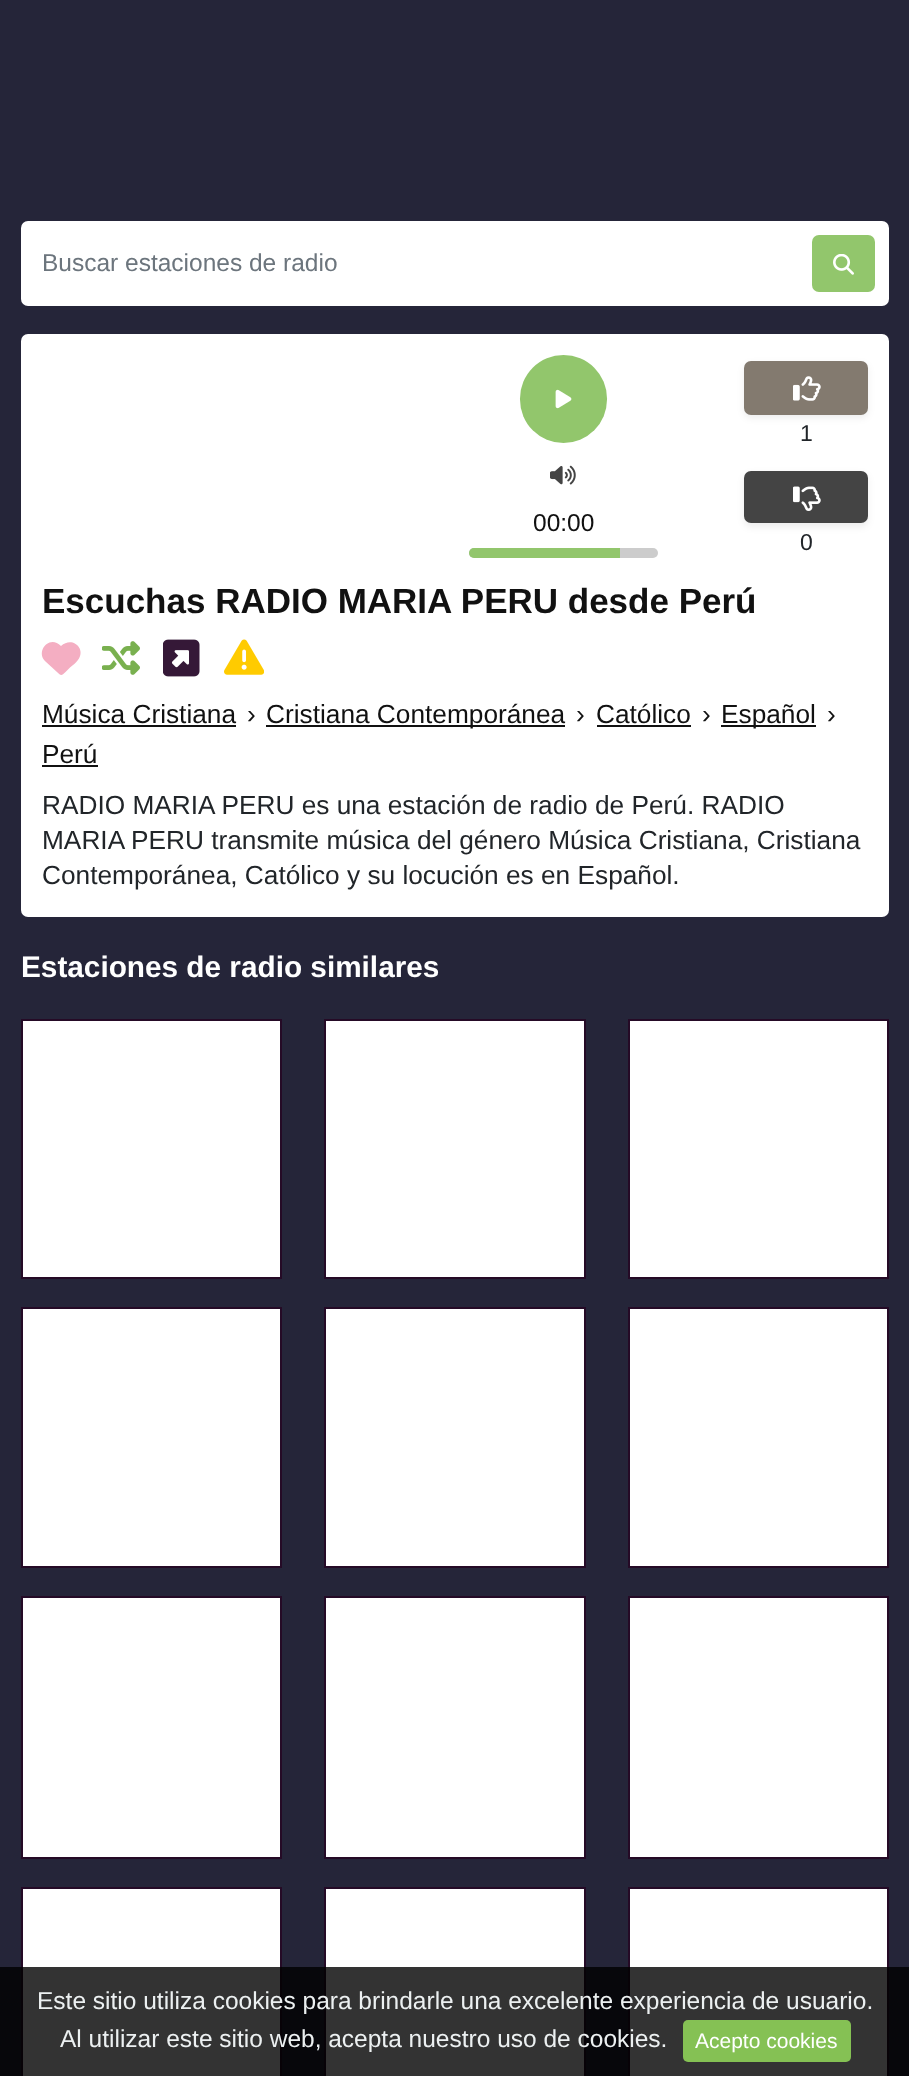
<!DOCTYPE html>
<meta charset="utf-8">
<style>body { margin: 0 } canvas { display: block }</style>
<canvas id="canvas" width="909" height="2076"></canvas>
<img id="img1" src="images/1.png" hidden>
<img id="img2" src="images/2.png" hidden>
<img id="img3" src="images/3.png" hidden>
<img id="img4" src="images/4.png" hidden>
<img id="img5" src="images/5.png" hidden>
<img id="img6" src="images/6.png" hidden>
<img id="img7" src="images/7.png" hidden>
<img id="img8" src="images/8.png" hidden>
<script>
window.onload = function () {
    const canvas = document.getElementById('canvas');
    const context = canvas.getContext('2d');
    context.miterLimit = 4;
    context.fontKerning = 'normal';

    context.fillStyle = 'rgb(37, 37, 57)';
    context.fillRect(0, 0, 909, 2076);
    context.fillStyle = 'rgb(255, 255, 255)';
    context.beginPath();
    context.roundRect(21, 221, 868, 85, 7);
    context.fill();
    context.fillStyle = 'rgb(146, 198, 108)';
    context.beginPath();
    context.roundRect(812, 235, 63, 57, 7);
    context.fill();
    context.drawImage(document.getElementById('img1'), 833, 254, 21, 21);
    context.fillStyle = 'rgb(255, 255, 255)';
    context.beginPath();
    context.roundRect(21, 334, 868, 583, 7);
    context.fill();
    context.fillStyle = 'rgb(146, 198, 108)';
    context.beginPath();
    context.roundRect(520, 355, 87, 88, 43.5);
    context.fill();
    context.drawImage(document.getElementById('img2'), 555, 389, 17, 20);
    context.drawImage(document.getElementById('img3'), 550, 465, 26, 20);
    context.fillStyle = 'rgb(204, 204, 204)';
    context.beginPath();
    context.roundRect(469, 548, 189, 10, 5);
    context.fill();
    context.fillStyle = 'rgb(146, 198, 108)';
    context.beginPath();
    context.roundRect(469, 548, 151, 10, [5, 0, 0, 5]);
    context.fill();
    context.fillStyle = 'rgba(0, 0, 0, 0.07)';
    context.filter = 'blur(3.5px)';
    context.beginPath();
    context.roundRect(744, 364, 124, 54, 7);
    context.fill();
    context.filter = 'none';
    context.fillStyle = 'rgb(131, 122, 111)';
    context.beginPath();
    context.roundRect(744, 361, 124, 54, 7);
    context.fill();
    context.drawImage(document.getElementById('img4'), 793, 376, 28, 25);
    context.fillStyle = 'rgba(0, 0, 0, 0.07)';
    context.filter = 'blur(3.5px)';
    context.beginPath();
    context.roundRect(744, 474, 124, 53, 7);
    context.fill();
    context.filter = 'none';
    context.fillStyle = 'rgb(68, 68, 68)';
    context.beginPath();
    context.roundRect(744, 471, 124, 52, 7);
    context.fill();
    context.drawImage(document.getElementById('img5'), 793, 486, 28, 25);
    context.fillStyle = 'rgb(244, 174, 194)';
    context.beginPath();
    context.moveTo(45.5, 661.5);
    context.lineTo(57, 672);
    context.bezierCurveTo(61, 676, 61.5, 676, 65.5, 672);
    context.lineTo(70, 667.5);
    context.bezierCurveTo(73, 665, 77, 662, 79, 658.5);
    context.bezierCurveTo(85.5, 647.5, 71.5, 636, 61, 646);
    context.bezierCurveTo(49.5, 634, 35, 651.5, 45.5, 661.5);
    context.closePath();
    context.fill();
    context.drawImage(document.getElementById('img6'), 102, 641, 38, 34);
    context.drawImage(document.getElementById('img7'), 163, 639, 37, 38);
    context.drawImage(document.getElementById('img8'), 224, 639, 40, 36);
    context.fillStyle = 'rgb(17, 17, 17)';
    context.fillRect(42, 725, 194, 2);
    context.fillRect(266, 725, 299, 2);
    context.fillRect(597, 725, 94, 2);
    context.fillRect(721, 725, 95, 2);
    context.fillRect(42, 765, 56, 2);
    context.fillStyle = 'rgb(255, 255, 255)';
    context.beginPath();
    context.rect(22, 1020, 259, 258);
    context.fill();
    context.strokeStyle = 'rgb(37, 10, 38)';
    context.lineWidth = 2;
    context.stroke();
    context.beginPath();
    context.rect(325, 1020, 260, 258);
    context.fill();
    context.stroke();
    context.beginPath();
    context.rect(629, 1020, 259, 258);
    context.fill();
    context.stroke();
    context.beginPath();
    context.rect(22, 1308, 259, 259);
    context.fill();
    context.stroke();
    context.beginPath();
    context.rect(325, 1308, 260, 259);
    context.fill();
    context.stroke();
    context.beginPath();
    context.rect(629, 1308, 259, 259);
    context.fill();
    context.stroke();
    context.beginPath();
    context.rect(22, 1597, 259, 261);
    context.fill();
    context.stroke();
    context.beginPath();
    context.rect(325, 1597, 260, 261);
    context.fill();
    context.stroke();
    context.beginPath();
    context.rect(629, 1597, 259, 261);
    context.fill();
    context.stroke();
    context.beginPath();
    context.rect(22, 1888, 259, 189);
    context.fill();
    context.stroke();
    context.beginPath();
    context.rect(325, 1888, 260, 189);
    context.fill();
    context.stroke();
    context.beginPath();
    context.rect(629, 1888, 259, 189);
    context.fill();
    context.stroke();
    context.fillStyle = 'rgba(0, 0, 0, 0.8)';
    context.fillRect(0, 1967, 909, 109);
    context.fillStyle = 'rgb(133, 193, 84)';
    context.beginPath();
    context.roundRect(683, 2020, 168, 42, 5);
    context.fill();
    context.font = '24.5px Liberation Sans';
    context.fillStyle = 'rgb(108, 117, 125)';
    context.fillText('Buscar estaciones de radio', 42, 271);
    context.fillStyle = 'rgb(17, 17, 17)';
    context.fillText('00:00', 533, 531);
    context.font = '23px Liberation Sans';
    context.fillStyle = 'rgb(33, 37, 41)';
    context.fillText('1', 800, 441);
    context.fillText('0', 800, 550);
    context.font = 'bold 35px Liberation Sans';
    context.fillStyle = 'rgb(17, 17, 17)';
    context.fillText('Escuchas RADIO MARIA PERU desde Perú', 42, 613);
    context.font = '26.25px Liberation Sans';
    context.fillText('Música Cristiana', 42, 723);
    context.fillText('›', 247, 723);
    context.fillText('Cristiana Contemporánea', 266, 723);
    context.fillText('›', 576, 723);
    context.fillText('Católico', 596, 723);
    context.fillText('›', 702, 723);
    context.fillText('Español', 721, 723);
    context.fillText('›', 827, 723);
    context.fillText('Perú', 42, 763);
    context.fillStyle = 'rgb(33, 37, 41)';
    context.fillText('RADIO MARIA PERU es una estación de radio de Perú. RADIO', 42, 814);
    context.fillText('MARIA PERU transmite música del género Música Cristiana, Cristiana', 42, 849);
    context.fillText('Contemporánea, Católico y su locución es en Español.', 42, 884);
    context.font = 'bold 29.75px Liberation Sans';
    context.fillStyle = 'rgb(255, 255, 255)';
    context.fillText('Estaciones de radio similares', 21, 977);
    context.font = '24.5px Liberation Sans';
    context.fillStyle = 'rgb(236, 240, 241)';
    context.fillText('Este sitio utiliza cookies para brindarle una excelente experiencia de usuario.', 37, 2009);
    context.fillText('Al utilizar este sitio web, acepta nuestro uso de cookies.', 60, 2047);
    context.font = '21px Liberation Sans';
    context.fillStyle = 'rgb(255, 255, 255)';
    context.fillText('Acepto cookies', 695, 2048);
};
</script>
